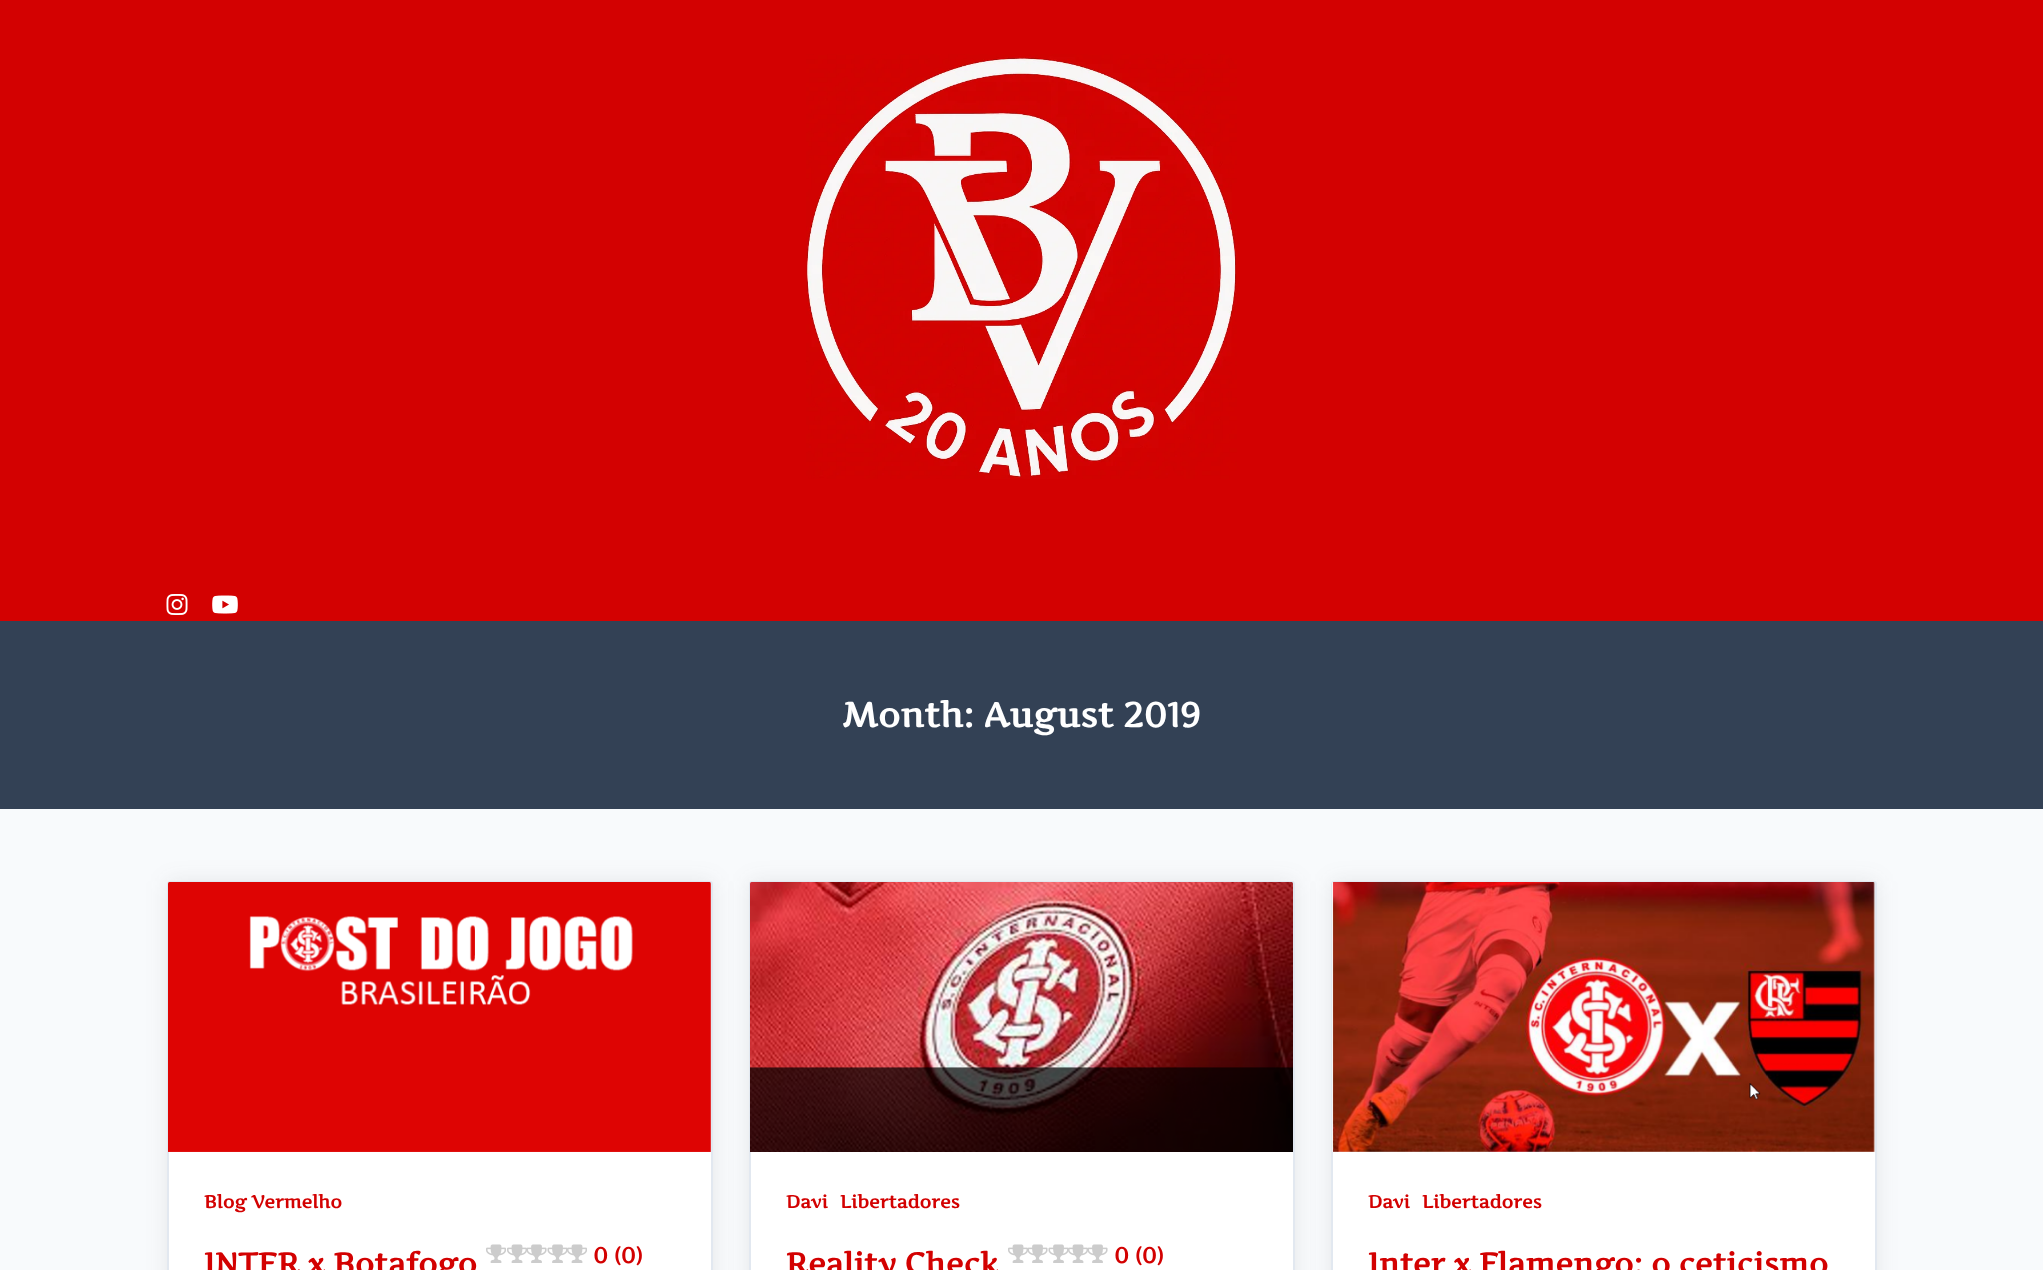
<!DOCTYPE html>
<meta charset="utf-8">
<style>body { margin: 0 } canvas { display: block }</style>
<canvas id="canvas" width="2043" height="1270"></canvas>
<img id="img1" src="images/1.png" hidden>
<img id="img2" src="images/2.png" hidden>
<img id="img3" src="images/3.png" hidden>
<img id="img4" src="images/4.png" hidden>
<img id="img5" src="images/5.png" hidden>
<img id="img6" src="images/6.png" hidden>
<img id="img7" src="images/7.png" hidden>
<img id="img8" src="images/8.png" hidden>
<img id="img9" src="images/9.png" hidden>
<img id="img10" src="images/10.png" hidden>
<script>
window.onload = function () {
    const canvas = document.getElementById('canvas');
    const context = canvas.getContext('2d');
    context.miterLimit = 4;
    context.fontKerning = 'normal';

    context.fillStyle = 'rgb(248, 250, 252)';
    context.fillRect(0, 0, 2043, 1270);
    context.fillStyle = 'rgb(211, 1, 1)';
    context.fillRect(0, 0, 2043, 621);
    context.drawImage(document.getElementById('img1'), 166, 594, 22, 21);
    context.drawImage(document.getElementById('img2'), 212, 595, 26, 19);
    context.drawImage(document.getElementById('img3'), 806, 54, 431, 425);
    context.fillStyle = 'rgb(51, 65, 85)';
    context.fillRect(0, 621, 2043, 188);
    context.fillStyle = 'rgba(70, 71, 73, 0.1)';
    context.filter = 'blur(10.5px)';
    context.beginPath();
    context.roundRect(167, 881, 546, 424, 3);
    context.fill();
    context.filter = 'none';
    context.fillStyle = 'rgb(255, 255, 255)';
    context.beginPath();
    context.roundRect(168, 882, 544, 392, 2);
    context.fill();
    context.strokeStyle = 'rgb(226, 232, 240)';
    context.lineWidth = 2;
    context.stroke();
    context.drawImage(document.getElementById('img4'), 168, 882, 543, 270);
    context.drawImage(document.getElementById('img5'), 486, 1244, 20, 19);
    context.drawImage(document.getElementById('img5'), 507, 1244, 20, 19);
    context.drawImage(document.getElementById('img6'), 527, 1244, 20, 19);
    context.drawImage(document.getElementById('img7'), 547, 1244, 21, 19);
    context.drawImage(document.getElementById('img8'), 567, 1244, 20, 19);
    context.fillStyle = 'rgba(70, 71, 73, 0.1)';
    context.filter = 'blur(10.5px)';
    context.beginPath();
    context.roundRect(749, 881, 546, 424, 3);
    context.fill();
    context.filter = 'none';
    context.fillStyle = 'rgb(255, 255, 255)';
    context.beginPath();
    context.roundRect(750, 882, 544, 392, 2);
    context.fill();
    context.stroke();
    context.drawImage(document.getElementById('img9'), 750, 882, 543, 270);
    context.drawImage(document.getElementById('img5'), 1008, 1244, 20, 19);
    context.drawImage(document.getElementById('img6'), 1028, 1244, 20, 19);
    context.drawImage(document.getElementById('img7'), 1048, 1244, 21, 19);
    context.drawImage(document.getElementById('img8'), 1068, 1244, 20, 19);
    context.drawImage(document.getElementById('img6'), 1088, 1244, 20, 19);
    context.fillStyle = 'rgba(70, 71, 73, 0.1)';
    context.filter = 'blur(10.5px)';
    context.beginPath();
    context.roundRect(1331, 881, 546, 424, 3);
    context.fill();
    context.filter = 'none';
    context.fillStyle = 'rgb(255, 255, 255)';
    context.beginPath();
    context.roundRect(1332, 882, 544, 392, 2);
    context.fill();
    context.stroke();
    context.drawImage(document.getElementById('img10'), 1332, 882, 543, 270);
    context.font = 'bold 34.75px Artifika';
    context.fillText('Month: August 2019', 842, 727);
    context.font = 'bold 18px Artifika';
    context.fillStyle = 'rgb(211, 1, 1)';
    context.fillText('Blog Vermelho', 204, 1208);
    context.font = 'bold 30px Artifika';
    context.fillText('INTER x Botafogo', 204, 1274);
    context.font = 'bold 22px Artifika';
    context.fillText('0 (0)', 593, 1263);
    context.font = 'bold 18px Artifika';
    context.fillText('Davi', 786, 1208);
    context.fillText('Libertadores', 840, 1208);
    context.font = 'bold 30px Artifika';
    context.fillText('Reality Check', 786, 1274);
    context.font = 'bold 22px Artifika';
    context.fillText('0 (0)', 1114, 1263);
    context.font = 'bold 18px Artifika';
    context.fillText('Davi', 1368, 1208);
    context.fillText('Libertadores', 1422, 1208);
    context.font = 'bold 30px Artifika';
    context.fillText('Inter x Flamengo: o ceticismo', 1368, 1274);
};
</script>
